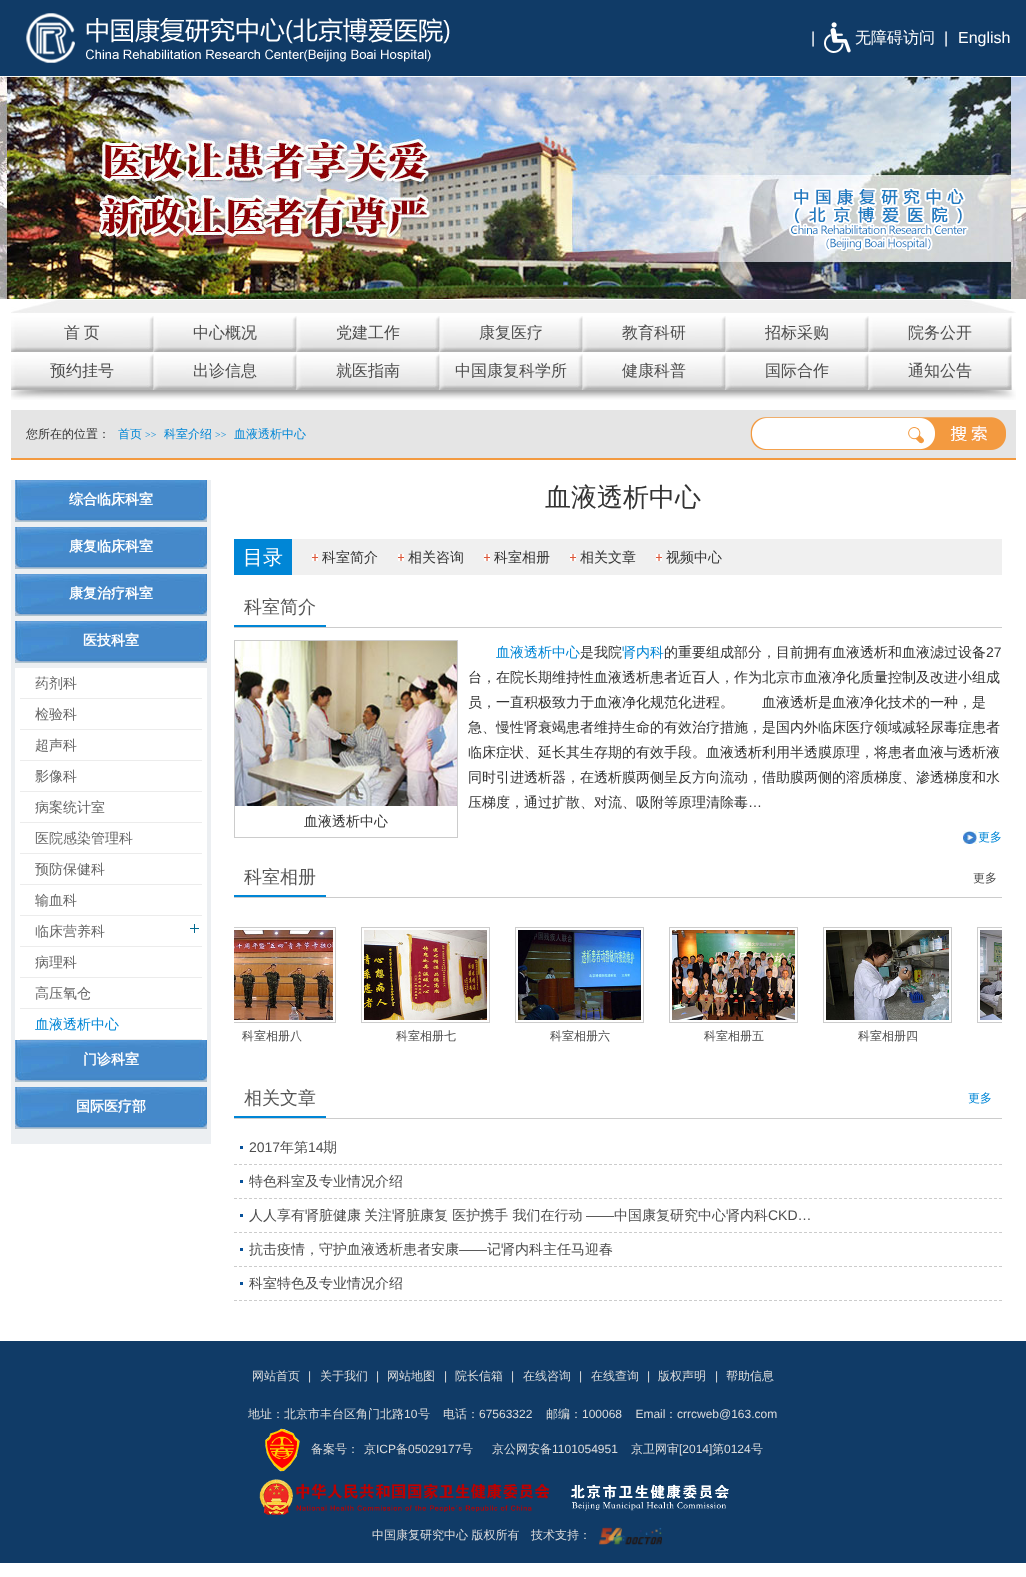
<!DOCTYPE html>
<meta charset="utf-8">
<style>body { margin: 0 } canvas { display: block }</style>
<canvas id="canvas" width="1026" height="1577"></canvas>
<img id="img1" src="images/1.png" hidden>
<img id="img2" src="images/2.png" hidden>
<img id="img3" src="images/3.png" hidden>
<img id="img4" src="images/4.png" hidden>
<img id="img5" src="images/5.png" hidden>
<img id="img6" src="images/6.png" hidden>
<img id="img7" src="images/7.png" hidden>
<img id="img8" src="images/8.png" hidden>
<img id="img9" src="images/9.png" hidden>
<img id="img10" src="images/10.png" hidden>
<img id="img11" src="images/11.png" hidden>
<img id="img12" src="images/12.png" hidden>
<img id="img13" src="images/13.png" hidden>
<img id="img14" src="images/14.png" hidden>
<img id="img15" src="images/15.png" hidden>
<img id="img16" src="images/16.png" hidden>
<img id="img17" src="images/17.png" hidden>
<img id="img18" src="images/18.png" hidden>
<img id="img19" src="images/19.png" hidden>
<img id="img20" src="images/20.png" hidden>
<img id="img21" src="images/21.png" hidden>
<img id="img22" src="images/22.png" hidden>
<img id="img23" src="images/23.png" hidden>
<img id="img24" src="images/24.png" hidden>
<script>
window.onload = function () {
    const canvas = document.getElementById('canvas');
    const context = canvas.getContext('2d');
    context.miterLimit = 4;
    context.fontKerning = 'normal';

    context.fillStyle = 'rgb(255, 255, 255)';
    context.fillRect(0, 0, 1026, 1577);
    context.fillStyle = 'rgb(16, 59, 103)';
    context.fillRect(0, 0, 1026, 76);
    context.drawImage(document.getElementById('img1'), 26, 13, 424, 50);
    context.drawImage(document.getElementById('img2'), 824, 22, 27, 31);
    context.drawImage(document.getElementById('img3'), 0, 76, 1026, 1);
    context.drawImage(document.getElementById('img4'), 0, 77, 1026, 222);
    context.drawImage(document.getElementById('img5'), 789, 188, 180, 63);
    context.drawImage(document.getElementById('img6'), 11, 300, 1005, 100);
    context.drawImage(document.getElementById('img7'), 11, 316, 143, 36);
    context.drawImage(document.getElementById('img7'), 154, 316, 143, 36);
    context.drawImage(document.getElementById('img7'), 297, 316, 143, 36);
    context.drawImage(document.getElementById('img7'), 440, 316, 143, 36);
    context.drawImage(document.getElementById('img7'), 583, 316, 143, 36);
    context.drawImage(document.getElementById('img7'), 726, 316, 143, 36);
    context.drawImage(document.getElementById('img7'), 869, 316, 143, 36);
    context.drawImage(document.getElementById('img7'), 11, 354, 143, 36);
    context.drawImage(document.getElementById('img7'), 154, 354, 143, 36);
    context.drawImage(document.getElementById('img7'), 297, 354, 143, 36);
    context.drawImage(document.getElementById('img7'), 440, 354, 143, 36);
    context.drawImage(document.getElementById('img7'), 583, 354, 143, 36);
    context.drawImage(document.getElementById('img7'), 726, 354, 143, 36);
    context.drawImage(document.getElementById('img7'), 869, 354, 143, 36);
    context.fillStyle = 'rgb(229, 229, 229)';
    context.fillRect(11, 410, 1005, 48);
    context.fillStyle = 'rgb(243, 154, 64)';
    context.fillRect(11, 458, 1005, 2);
    context.drawImage(document.getElementById('img8'), 750, 417, 156, 33);
    context.drawImage(document.getElementById('img9'), 906, 417, 100, 33);
    context.fillStyle = 'rgb(236, 239, 242)';
    context.fillRect(11, 480, 200, 664);
    context.drawImage(document.getElementById('img10'), 15, 480, 192, 42);
    context.drawImage(document.getElementById('img10'), 15, 527, 192, 42);
    context.drawImage(document.getElementById('img10'), 15, 574, 192, 42);
    context.drawImage(document.getElementById('img10'), 15, 621, 192, 42);
    context.fillStyle = 'rgb(255, 255, 255)';
    context.fillRect(15, 668, 192, 372);
    context.fillStyle = 'rgb(236, 236, 236)';
    context.fillRect(20, 698, 182, 1);
    context.fillRect(20, 729, 182, 1);
    context.fillRect(20, 760, 182, 1);
    context.fillRect(20, 791, 182, 1);
    context.fillRect(20, 822, 182, 1);
    context.fillRect(20, 853, 182, 1);
    context.fillRect(20, 884, 182, 1);
    context.fillRect(20, 915, 182, 1);
    context.fillRect(20, 946, 182, 1);
    context.drawImage(document.getElementById('img11'), 190, 924, 9, 9);
    context.fillRect(20, 977, 182, 1);
    context.fillRect(20, 1008, 182, 1);
    context.fillRect(20, 1039, 182, 1);
    context.drawImage(document.getElementById('img10'), 15, 1040, 192, 42);
    context.drawImage(document.getElementById('img10'), 15, 1087, 192, 42);
    context.fillStyle = 'rgb(240, 240, 240)';
    context.fillRect(292, 539, 710, 36);
    context.fillStyle = 'rgb(0, 134, 214)';
    context.fillRect(234, 539, 58, 36);
    context.drawImage(document.getElementById('img12'), 312, 554, 6, 7);
    context.drawImage(document.getElementById('img12'), 398, 554, 6, 7);
    context.drawImage(document.getElementById('img12'), 484, 554, 6, 7);
    context.drawImage(document.getElementById('img12'), 570, 554, 6, 7);
    context.drawImage(document.getElementById('img12'), 656, 554, 6, 7);
    context.fillStyle = 'rgb(204, 204, 204)';
    context.fillRect(234, 627, 768, 1);
    context.fillStyle = 'rgb(0, 134, 214)';
    context.fillRect(234, 625, 92, 2);
    context.strokeStyle = 'rgb(204, 204, 204)';
    context.strokeRect(234.5, 640.5, 223, 197);
    context.drawImage(document.getElementById('img13'), 235, 641, 222, 165);
    context.drawImage(document.getElementById('img14'), 963, 831, 14, 13);
    context.fillStyle = 'rgb(204, 204, 204)';
    context.fillRect(234, 897, 768, 1);
    context.fillStyle = 'rgb(0, 134, 214)';
    context.fillRect(234, 895, 92, 2);
    context.save();
    context.beginPath();
    context.rect(234, 910, 768, 159);
    context.clip();
    context.strokeRect(977.5, 927.5, 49, 95);
    context.restore();
    context.drawImage(document.getElementById('img15'), 980, 930, 22, 90);
    context.save();
    context.beginPath();
    context.rect(234, 910, 768, 159);
    context.clip();
    context.strokeRect(207.5, 927.5, 128, 95);
    context.restore();
    context.drawImage(document.getElementById('img16'), 234, 930, 99, 90);
    context.strokeRect(361.5, 927.5, 128, 95);
    context.drawImage(document.getElementById('img17'), 364, 930, 123, 90);
    context.strokeRect(515.5, 927.5, 128, 95);
    context.drawImage(document.getElementById('img18'), 518, 930, 123, 90);
    context.strokeRect(669.5, 927.5, 128, 95);
    context.drawImage(document.getElementById('img19'), 672, 930, 123, 90);
    context.strokeRect(823.5, 927.5, 128, 95);
    context.drawImage(document.getElementById('img20'), 826, 930, 123, 90);
    context.fillStyle = 'rgb(204, 204, 204)';
    context.fillRect(234, 1118, 768, 1);
    context.fillStyle = 'rgb(0, 134, 214)';
    context.fillRect(234, 1116, 92, 2);
    context.fillStyle = 'rgb(7, 81, 154)';
    context.fillRect(240, 1146, 3, 3);
    context.beginPath();
    context.moveTo(234, 1164.5);
    context.lineTo(1002, 1164.5);
    context.setLineDash([3, 2]);
    context.stroke();
    context.fillRect(240, 1180, 3, 3);
    context.beginPath();
    context.moveTo(234, 1198.5);
    context.lineTo(1002, 1198.5);
    context.stroke();
    context.fillRect(240, 1214, 3, 3);
    context.beginPath();
    context.moveTo(234, 1232.5);
    context.lineTo(1002, 1232.5);
    context.stroke();
    context.fillRect(240, 1248, 3, 3);
    context.beginPath();
    context.moveTo(234, 1266.5);
    context.lineTo(1002, 1266.5);
    context.stroke();
    context.fillRect(240, 1282, 3, 3);
    context.beginPath();
    context.moveTo(234, 1300.5);
    context.lineTo(1002, 1300.5);
    context.stroke();
    context.fillStyle = 'rgb(16, 59, 103)';
    context.fillRect(0, 1341, 1026, 222);
    context.drawImage(document.getElementById('img21'), 265, 1428, 35, 44);
    context.drawImage(document.getElementById('img22'), 259, 1479, 291, 36);
    context.drawImage(document.getElementById('img23'), 570, 1484, 159, 27);
    context.drawImage(document.getElementById('img24'), 599, 1527, 63, 18);
    context.font = '16px Liberation Sans';
    context.fillStyle = 'rgb(255, 255, 255)';
    context.fillText('|', 811, 43);
    context.font = '500 16px WenQuanYi Zen Hei';
    context.fillText('无障碍访问', 855, 43);
    context.font = '16px Liberation Sans';
    context.fillText('|', 944, 43);
    context.fillText('English', 958, 43);
    context.wordSpacing = '-1px';
    context.font = '500 16px WenQuanYi Zen Hei';
    context.fillStyle = 'rgb(77, 77, 77)';
    context.fillText('首 页', 64, 338);
    context.wordSpacing = '0px';
    context.fillText('中心概况', 193, 338);
    context.fillText('党建工作', 336, 338);
    context.fillText('康复医疗', 479, 338);
    context.fillText('教育科研', 622, 338);
    context.fillText('招标采购', 765, 338);
    context.fillText('院务公开', 908, 338);
    context.fillText('预约挂号', 50, 376);
    context.fillText('出诊信息', 193, 376);
    context.fillText('就医指南', 336, 376);
    context.fillText('中国康复科学所', 455, 376);
    context.fillText('健康科普', 622, 376);
    context.fillText('国际合作', 765, 376);
    context.fillText('通知公告', 908, 376);
    context.font = '500 12px WenQuanYi Zen Hei';
    context.fillStyle = 'rgb(51, 51, 51)';
    context.fillText('您所在的位置：', 26, 438);
    context.fillStyle = 'rgb(0, 134, 214)';
    context.fillText('首页', 118, 438);
    context.font = '10px Liberation Serif';
    context.fillText('>>', 145, 438);
    context.font = '500 12px WenQuanYi Zen Hei';
    context.fillText('科室介绍', 164, 438);
    context.font = '10px Liberation Serif';
    context.fillText('>>', 215, 438);
    context.font = '500 12px WenQuanYi Zen Hei';
    context.fillText('血液透析中心', 234, 438);
    context.font = 'bold 14px WenQuanYi Zen Hei';
    context.fillStyle = 'rgb(255, 255, 255)';
    context.fillText('综合临床科室', 69, 504);
    context.fillText('康复临床科室', 69, 551);
    context.fillText('康复治疗科室', 69, 598);
    context.fillText('医技科室', 83, 645);
    context.font = '500 14px WenQuanYi Zen Hei';
    context.fillStyle = 'rgb(102, 102, 102)';
    context.fillText('药剂科', 35, 688);
    context.fillText('检验科', 35, 719);
    context.fillText('超声科', 35, 750);
    context.fillText('影像科', 35, 781);
    context.fillText('病案统计室', 35, 812);
    context.fillText('医院感染管理科', 35, 843);
    context.fillText('预防保健科', 35, 874);
    context.fillText('输血科', 35, 905);
    context.fillText('临床营养科', 35, 936);
    context.fillText('病理科', 35, 967);
    context.fillText('高压氧仓', 35, 998);
    context.fillStyle = 'rgb(0, 134, 214)';
    context.fillText('血液透析中心', 35, 1029);
    context.font = 'bold 14px WenQuanYi Zen Hei';
    context.fillStyle = 'rgb(255, 255, 255)';
    context.fillText('门诊科室', 83, 1064);
    context.fillText('国际医疗部', 76, 1111);
    context.font = '500 26px WenQuanYi Zen Hei';
    context.fillStyle = 'rgb(51, 51, 51)';
    context.fillText('血液透析中心', 545, 506);
    context.font = '500 20px WenQuanYi Zen Hei';
    context.fillStyle = 'rgb(255, 255, 255)';
    context.fillText('目录', 243, 564);
    context.font = '500 14px WenQuanYi Zen Hei';
    context.fillStyle = 'rgb(51, 51, 51)';
    context.fillText('科室简介', 322, 562);
    context.fillText('相关咨询', 408, 562);
    context.fillText('科室相册', 494, 562);
    context.fillText('相关文章', 580, 562);
    context.fillText('视频中心', 666, 562);
    context.font = '500 18px WenQuanYi Zen Hei';
    context.fillStyle = 'rgb(85, 85, 85)';
    context.fillText('科室简介', 244, 613);
    context.font = '500 14px WenQuanYi Zen Hei';
    context.fillStyle = 'rgb(0, 134, 214)';
    context.fillText('血液透析中心', 496, 657);
    context.fillStyle = 'rgb(51, 51, 51)';
    context.fillText('是我院', 580, 657);
    context.fillStyle = 'rgb(0, 134, 214)';
    context.fillText('肾内科', 622, 657);
    context.fillStyle = 'rgb(51, 51, 51)';
    context.fillText('的重要组成部分，目前拥有血液透析和血液滤过设备', 664, 657);
    context.font = '14px Liberation Sans';
    context.fillText('27', 986, 657);
    context.font = '500 14px WenQuanYi Zen Hei';
    context.fillText('台，在院长期维持性血液透析患者近百人，作为北京市血液净化质量控制及改进小组成', 468, 682);
    context.fillText('员，一直积极致力于血液净化规范化进程。　　血液透析是血液净化技术的一种，是', 468, 707);
    context.fillText('急、慢性肾衰竭患者维持生命的有效治疗措施，是国内外临床医疗领域减轻尿毒症患者', 468, 732);
    context.fillText('临床症状、延长其生存期的有效手段。血液透析利用半透膜原理，将患者血液与透析液', 468, 757);
    context.fillText('同时引进透析器，在透析膜两侧呈反方向流动，借助膜两侧的溶质梯度、渗透梯度和水', 468, 782);
    context.fillText('压梯度，通过扩散、对流、吸附等原理清除毒', 468, 807);
    context.font = '14px Liberation Sans';
    context.fillText('…', 748, 807);
    context.font = '500 14px WenQuanYi Zen Hei';
    context.fillText('血液透析中心', 304, 826);
    context.font = '500 12px WenQuanYi Zen Hei';
    context.fillStyle = 'rgb(0, 134, 214)';
    context.fillText('更多', 978, 841);
    context.font = '500 18px WenQuanYi Zen Hei';
    context.fillStyle = 'rgb(85, 85, 85)';
    context.fillText('科室相册', 244, 883);
    context.font = '500 12px WenQuanYi Zen Hei';
    context.fillStyle = 'rgb(77, 77, 77)';
    context.fillText('更多', 973, 882);
    context.fillText('科室相册八', 242, 1040);
    context.fillText('科室相册七', 396, 1040);
    context.fillText('科室相册六', 550, 1040);
    context.fillText('科室相册五', 704, 1040);
    context.fillText('科室相册四', 858, 1040);
    context.font = '500 18px WenQuanYi Zen Hei';
    context.fillStyle = 'rgb(85, 85, 85)';
    context.fillText('相关文章', 244, 1104);
    context.font = '500 12px WenQuanYi Zen Hei';
    context.fillStyle = 'rgb(0, 134, 214)';
    context.fillText('更多', 968, 1102);
    context.font = '14px Liberation Sans';
    context.fillStyle = 'rgb(77, 77, 77)';
    context.fillText('2017', 249, 1152);
    context.font = '500 14px WenQuanYi Zen Hei';
    context.fillText('年第', 280, 1152);
    context.font = '14px Liberation Sans';
    context.fillText('14', 308, 1152);
    context.font = '500 14px WenQuanYi Zen Hei';
    context.fillText('期', 323, 1152);
    context.fillText('特色科室及专业情况介绍', 249, 1186);
    context.fillText('人人享有肾脏健康', 249, 1220);
    context.fillText('关注肾脏康复 医护携手 我们在行动', 364, 1220);
    context.font = '14px Liberation Sans';
    context.fillText('——', 586, 1220);
    context.font = '500 14px WenQuanYi Zen Hei';
    context.fillText('中国康复研究中心肾内科', 614, 1220);
    context.font = '14px Liberation Sans';
    context.fillText('CKD…', 768, 1220);
    context.font = '500 14px WenQuanYi Zen Hei';
    context.fillText('抗击疫情，守护血液透析患者安康', 249, 1254);
    context.font = '14px Liberation Sans';
    context.fillText('——', 459, 1254);
    context.font = '500 14px WenQuanYi Zen Hei';
    context.fillText('记肾内科主任马迎春', 487, 1254);
    context.fillText('科室特色及专业情况介绍', 249, 1288);
    context.font = '500 12px WenQuanYi Zen Hei';
    context.fillStyle = 'rgb(220, 220, 220)';
    context.fillText('网站首页', 252, 1380);
    context.font = '12px Liberation Sans';
    context.fillText('|', 308, 1380);
    context.font = '500 12px WenQuanYi Zen Hei';
    context.fillText('关于我们', 320, 1380);
    context.font = '12px Liberation Sans';
    context.fillText('|', 376, 1380);
    context.font = '500 12px WenQuanYi Zen Hei';
    context.fillText('网站地图', 387, 1380);
    context.font = '12px Liberation Sans';
    context.fillText('|', 444, 1380);
    context.font = '500 12px WenQuanYi Zen Hei';
    context.fillText('院长信箱', 455, 1380);
    context.font = '12px Liberation Sans';
    context.fillText('|', 511, 1380);
    context.font = '500 12px WenQuanYi Zen Hei';
    context.fillText('在线咨询', 523, 1380);
    context.font = '12px Liberation Sans';
    context.fillText('|', 579, 1380);
    context.font = '500 12px WenQuanYi Zen Hei';
    context.fillText('在线查询', 591, 1380);
    context.font = '12px Liberation Sans';
    context.fillText('|', 647, 1380);
    context.font = '500 12px WenQuanYi Zen Hei';
    context.fillText('版权声明', 658, 1380);
    context.font = '12px Liberation Sans';
    context.fillText('|', 715, 1380);
    context.font = '500 12px WenQuanYi Zen Hei';
    context.fillText('帮助信息', 726, 1380);
    context.fillText('地址：北京市丰台区角门北路', 248, 1418);
    context.font = '12px Liberation Sans';
    context.fillText('10', 404, 1418);
    context.font = '500 12px WenQuanYi Zen Hei';
    context.fillText('号', 418, 1418);
    context.fillText('电话：', 443, 1418);
    context.font = '12px Liberation Sans';
    context.fillText('67563322', 479, 1418);
    context.font = '500 12px WenQuanYi Zen Hei';
    context.fillText('邮编：', 546, 1418);
    context.font = '12px Liberation Sans';
    context.fillText('100068    Email', 582, 1418);
    context.font = '500 12px WenQuanYi Zen Hei';
    context.fillText('：', 665, 1418);
    context.font = '12px Liberation Sans';
    context.fillText('crrcweb@163.com', 677, 1418);
    context.font = '500 12px WenQuanYi Zen Hei';
    context.fillText('备案号：', 311, 1453);
    context.fillText('京', 364, 1453);
    context.font = '12px Liberation Sans';
    context.fillText('ICP', 376, 1453);
    context.font = '500 12px WenQuanYi Zen Hei';
    context.fillText('备', 396, 1453);
    context.font = '12px Liberation Sans';
    context.fillText('05029177', 408, 1453);
    context.font = '500 12px WenQuanYi Zen Hei';
    context.fillText('号', 461, 1453);
    context.fillText('京公网安备', 492, 1453);
    context.font = '12px Liberation Sans';
    context.fillText('1101054951', 552, 1453);
    context.font = '500 12px WenQuanYi Zen Hei';
    context.fillText('京卫网审', 631, 1453);
    context.font = '12px Liberation Sans';
    context.fillText('[2014]', 679, 1453);
    context.font = '500 12px WenQuanYi Zen Hei';
    context.fillText('第', 712, 1453);
    context.font = '12px Liberation Sans';
    context.fillText('0124', 724, 1453);
    context.font = '500 12px WenQuanYi Zen Hei';
    context.fillText('号', 751, 1453);
    context.fillText('中国康复研究中心 版权所有', 372, 1539);
    context.fillText('技术支持：', 531, 1539);
};
</script>
